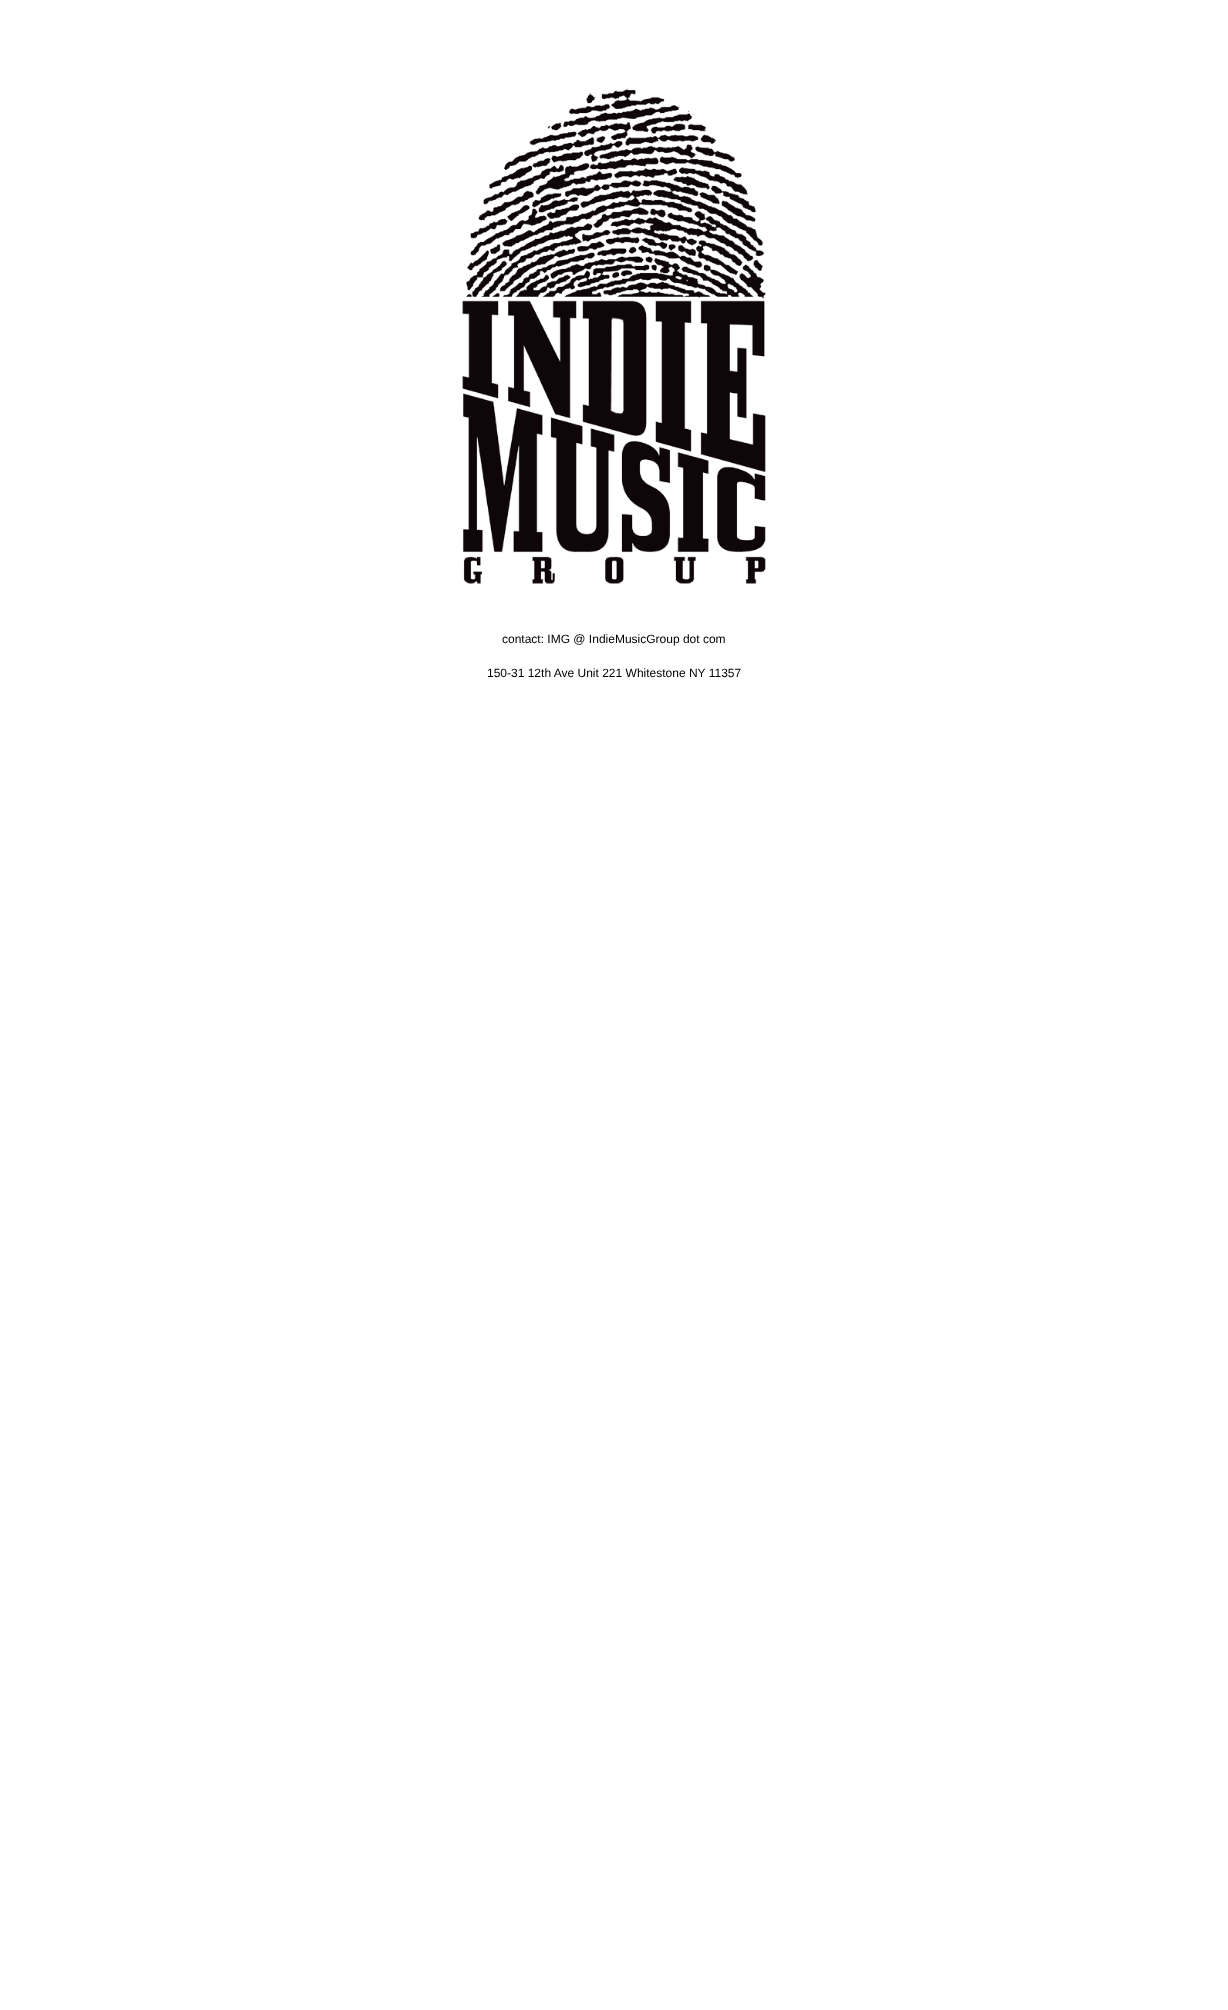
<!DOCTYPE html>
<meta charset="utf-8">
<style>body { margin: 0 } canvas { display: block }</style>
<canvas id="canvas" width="1228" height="2010"></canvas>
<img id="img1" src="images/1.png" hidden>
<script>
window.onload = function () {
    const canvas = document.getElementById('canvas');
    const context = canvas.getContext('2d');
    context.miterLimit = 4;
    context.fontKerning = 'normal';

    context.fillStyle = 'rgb(255, 255, 255)';
    context.fillRect(0, 0, 1228, 2010);
    context.drawImage(document.getElementById('img1'), 462, 88, 304, 496);
    context.font = '12px Liberation Sans';
    context.fillStyle = 'rgb(0, 0, 0)';
    context.fillText('contact: IMG @ IndieMusicGroup dot com', 502, 643);
    context.fillText('150-31 12th Ave Unit 221 Whitestone NY 11357', 487, 677);
};
</script>
